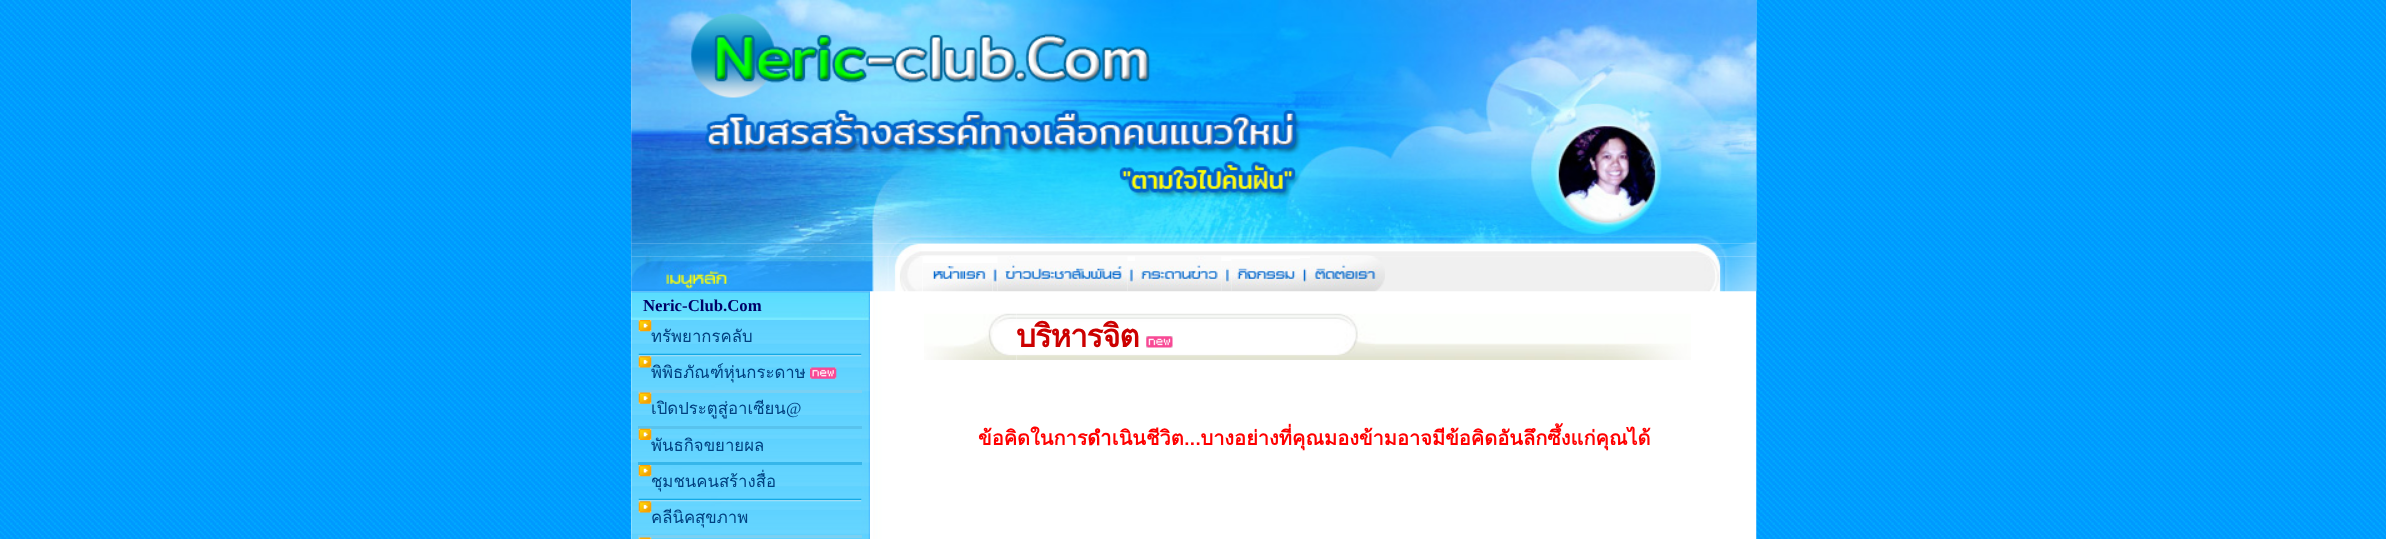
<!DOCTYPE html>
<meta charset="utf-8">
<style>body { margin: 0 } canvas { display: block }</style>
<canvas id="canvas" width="2386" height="539"></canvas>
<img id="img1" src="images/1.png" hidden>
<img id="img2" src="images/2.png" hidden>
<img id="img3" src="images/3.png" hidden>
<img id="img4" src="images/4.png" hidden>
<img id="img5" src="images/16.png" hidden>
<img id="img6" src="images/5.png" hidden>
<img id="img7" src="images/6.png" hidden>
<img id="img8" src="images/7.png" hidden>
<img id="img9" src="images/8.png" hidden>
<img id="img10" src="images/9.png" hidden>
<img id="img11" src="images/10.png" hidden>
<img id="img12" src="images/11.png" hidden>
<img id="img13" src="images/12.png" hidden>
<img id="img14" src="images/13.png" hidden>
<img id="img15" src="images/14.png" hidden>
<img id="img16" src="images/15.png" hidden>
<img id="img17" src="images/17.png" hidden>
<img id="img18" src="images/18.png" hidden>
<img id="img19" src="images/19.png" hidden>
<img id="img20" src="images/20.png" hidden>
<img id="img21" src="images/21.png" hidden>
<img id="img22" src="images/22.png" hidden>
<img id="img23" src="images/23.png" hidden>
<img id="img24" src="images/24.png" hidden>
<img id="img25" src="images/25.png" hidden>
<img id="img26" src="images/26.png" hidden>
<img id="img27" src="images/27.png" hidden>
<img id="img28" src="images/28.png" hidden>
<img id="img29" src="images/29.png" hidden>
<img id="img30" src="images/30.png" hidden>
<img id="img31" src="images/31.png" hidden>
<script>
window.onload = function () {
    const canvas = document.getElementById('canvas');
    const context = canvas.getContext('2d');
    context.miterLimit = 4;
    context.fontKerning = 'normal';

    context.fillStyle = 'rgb(255, 255, 255)';
    context.fillRect(0, 0, 2386, 539);
    context.drawImage(document.getElementById('img1'), 0, 0, 2386, 539);
    context.drawImage(document.getElementById('img2'), 631, 0, 1126, 539);
    context.drawImage(document.getElementById('img3'), 631, 0, 1126, 244);
    context.drawImage(document.getElementById('img4'), 631, 243, 1126, 14);
    context.fillRect(631, 291, 242, 248);
    context.drawImage(document.getElementById('img5'), 631, 291, 239, 29);
    context.drawImage(document.getElementById('img6'), 631, 256, 292, 36);
    context.drawImage(document.getElementById('img7'), 923, 263, 70, 29);
    context.drawImage(document.getElementById('img8'), 992, 263, 6, 29);
    context.drawImage(document.getElementById('img9'), 997, 256, 131, 36);
    context.drawImage(document.getElementById('img10'), 1127, 261, 8, 31);
    context.drawImage(document.getElementById('img11'), 1135, 256, 87, 36);
    context.drawImage(document.getElementById('img12'), 1221, 261, 11, 31);
    context.drawImage(document.getElementById('img13'), 1231, 259, 69, 33);
    context.drawImage(document.getElementById('img14'), 1300, 258, 10, 34);
    context.drawImage(document.getElementById('img15'), 1310, 256, 75, 36);
    context.drawImage(document.getElementById('img16'), 1385, 256, 372, 36);
    context.drawImage(document.getElementById('img17'), 631, 320, 239, 219);
    context.drawImage(document.getElementById('img18'), 638, 320, 14, 12);
    context.drawImage(document.getElementById('img19'), 638, 353, 224, 4);
    context.drawImage(document.getElementById('img20'), 638, 356, 14, 12);
    context.drawImage(document.getElementById('img21'), 810, 367, 27, 12);
    context.fillStyle = 'rgb(122, 208, 242)';
    context.fillRect(638, 390, 224, 3);
    context.drawImage(document.getElementById('img22'), 638, 392, 14, 12);
    context.fillStyle = 'rgb(88, 195, 238)';
    context.fillRect(638, 426, 224, 3);
    context.drawImage(document.getElementById('img23'), 638, 428, 14, 12);
    context.fillStyle = 'rgb(54, 182, 234)';
    context.fillRect(638, 462, 224, 3);
    context.drawImage(document.getElementById('img24'), 638, 465, 14, 12);
    context.drawImage(document.getElementById('img25'), 638, 498, 224, 4);
    context.drawImage(document.getElementById('img26'), 638, 501, 14, 12);
    context.fillStyle = 'rgb(122, 208, 242)';
    context.fillRect(638, 535, 224, 3);
    context.drawImage(document.getElementById('img27'), 638, 537, 14, 2);
    context.drawImage(document.getElementById('img28'), 924, 313, 92, 47);
    context.drawImage(document.getElementById('img29'), 1016, 313, 299, 47);
    context.drawImage(document.getElementById('img30'), 1146, 336, 27, 12);
    context.drawImage(document.getElementById('img31'), 1315, 313, 376, 47);
    context.font = 'bold 16.75px Liberation Serif';
    context.fillStyle = 'rgb(0, 0, 102)';
    context.fillText('Neric-Club.Com', 643, 311);
    context.font = '16.75px Loma';
    context.fillStyle = 'rgb(0, 64, 128)';
    context.fillText('ทรัพยากรคลับ', 651, 342);
    context.fillText('พิพิธภัณฑ์หุ่นกระดาษ', 651, 378);
    context.fillText('เปิดประตูสู่อาเซียน', 651, 414);
    context.font = '16.75px Liberation Serif';
    context.fillText('@', 786, 414);
    context.font = '16.75px Loma';
    context.fillText('พันธกิจขยายผล', 651, 451);
    context.fillText('ชุมชนคนสร้างสื่อ', 651, 487);
    context.fillText('คลีนิคสุขภาพ', 651, 523);
    context.letterSpacing = '-1.25px';
    context.font = 'bold 31.5px Loma';
    context.fillStyle = 'rgb(204, 0, 0)';
    context.fillText('บริหารจิต', 1016, 347);
    context.letterSpacing = '0px';
    context.font = 'bold 20px Loma';
    context.fillStyle = 'rgb(255, 0, 0)';
    context.fillText('ข้อคิดในการดำเนินชีวิต...บางอย่างที่คุณมองข้ามอาจมีข้อคิดอันลึกซึ้งแก่คุณได้', 978, 445);
};
</script>
